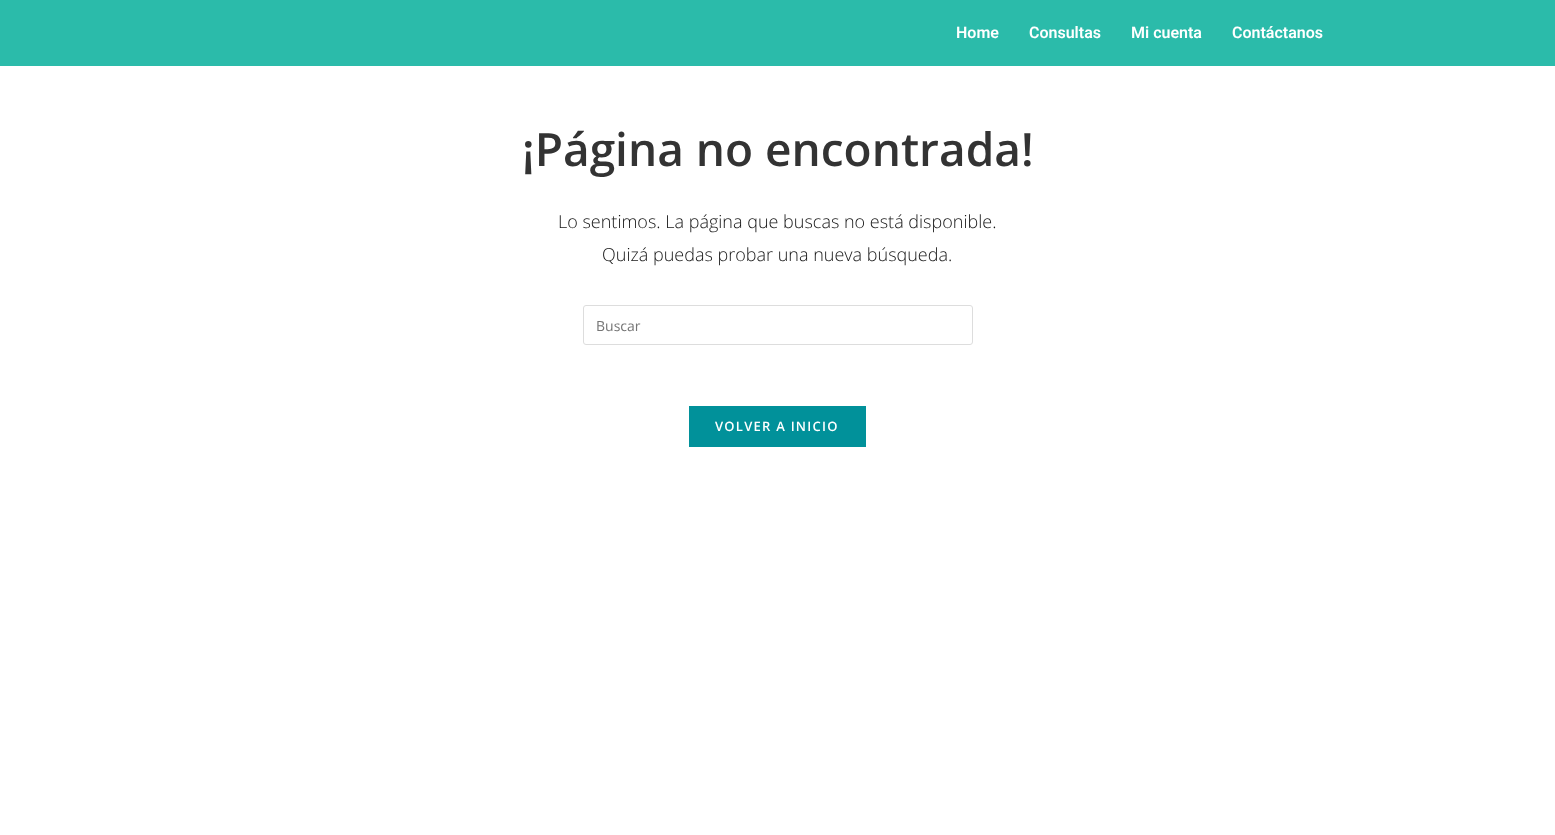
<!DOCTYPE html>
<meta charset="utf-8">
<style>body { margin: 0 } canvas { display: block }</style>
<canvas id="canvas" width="1555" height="835"></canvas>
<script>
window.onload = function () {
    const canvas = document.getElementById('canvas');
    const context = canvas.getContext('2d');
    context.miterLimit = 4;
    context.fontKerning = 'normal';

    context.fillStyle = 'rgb(255, 255, 255)';
    context.fillRect(0, 0, 1555, 835);
    context.fillStyle = 'rgb(43, 187, 170)';
    context.fillRect(0, 0, 1555, 66);
    context.beginPath();
    context.roundRect(583.5, 305.5, 389, 39, 2.5);
    context.strokeStyle = 'rgb(221, 221, 221)';
    context.stroke();
    context.fillStyle = 'rgb(1, 145, 154)';
    context.fillRect(689, 406, 177, 41);
    context.font = '600 16px Roboto';
    context.fillStyle = 'rgb(255, 255, 255)';
    context.fillText('Home', 956, 38);
    context.fillText('Consultas', 1029, 38);
    context.fillText('Mi cuenta', 1131, 38);
    context.fillText('Contáctanos', 1232, 38);
    context.font = '600 46px Open Sans';
    context.fillStyle = 'rgb(51, 51, 51)';
    context.fillText('¡Página no encontrada!', 522, 166);
    context.font = '300 18px Open Sans';
    context.fillStyle = 'rgb(22, 22, 22)';
    context.fillText('Lo sentimos. La página que buscas no está disponible.', 558, 228);
    context.fillText('Quizá puedas probar una nueva búsqueda.', 602, 261);
    context.font = '14px Open Sans';
    context.fillStyle = 'rgb(117, 117, 117)';
    context.fillText('Buscar', 596, 331);
    context.letterSpacing = '1.25px';
    context.font = '600 13px Open Sans';
    context.fillStyle = 'rgb(255, 255, 255)';
    context.fillText('VOLVER A INICIO', 715, 431);
};
</script>
